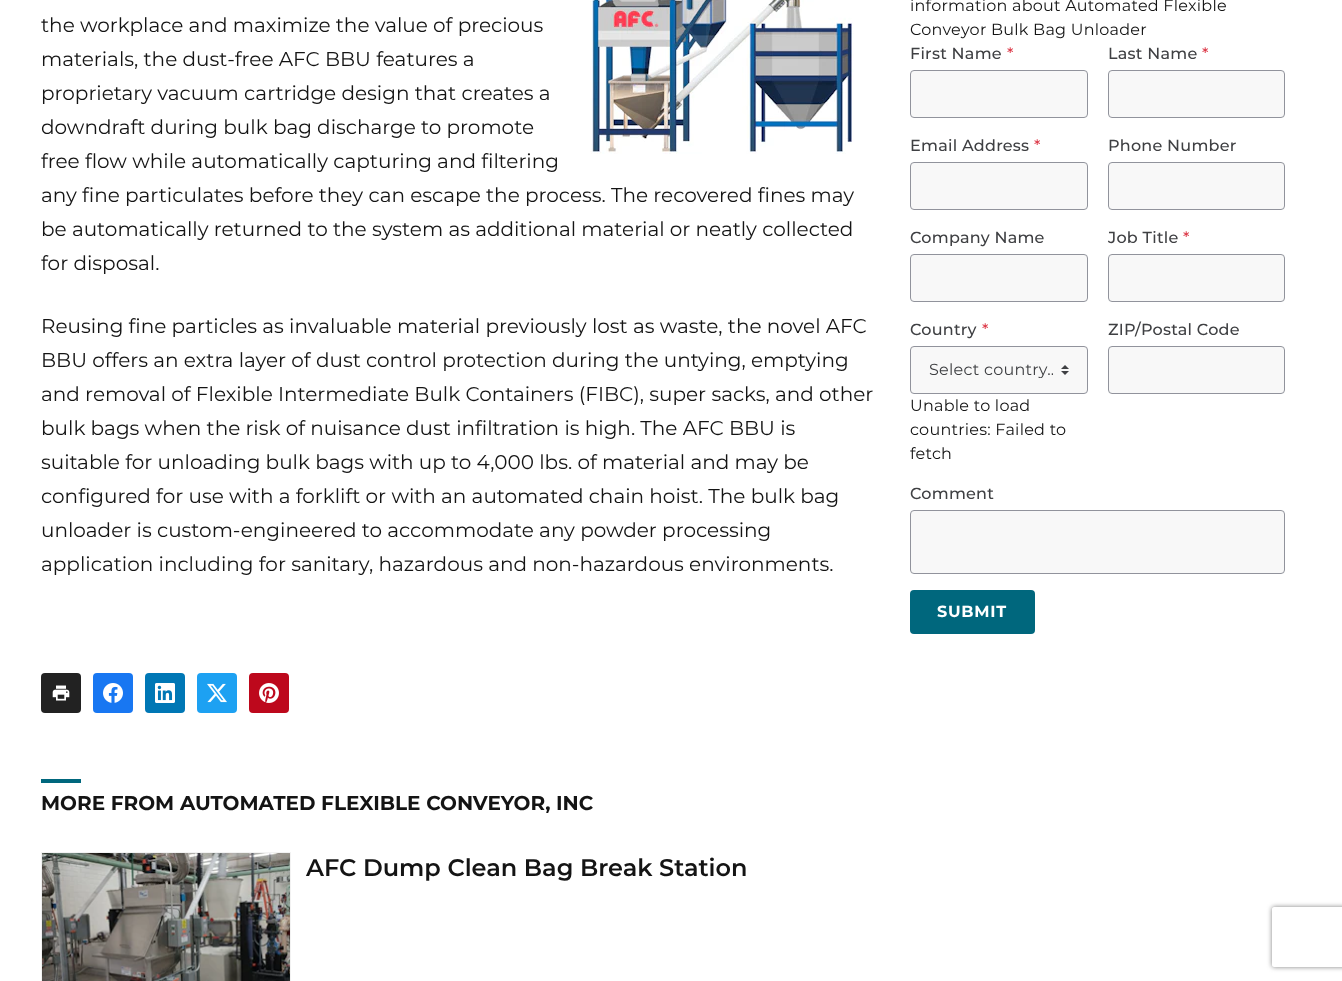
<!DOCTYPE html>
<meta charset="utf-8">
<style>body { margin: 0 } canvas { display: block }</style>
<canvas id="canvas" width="1342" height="981"></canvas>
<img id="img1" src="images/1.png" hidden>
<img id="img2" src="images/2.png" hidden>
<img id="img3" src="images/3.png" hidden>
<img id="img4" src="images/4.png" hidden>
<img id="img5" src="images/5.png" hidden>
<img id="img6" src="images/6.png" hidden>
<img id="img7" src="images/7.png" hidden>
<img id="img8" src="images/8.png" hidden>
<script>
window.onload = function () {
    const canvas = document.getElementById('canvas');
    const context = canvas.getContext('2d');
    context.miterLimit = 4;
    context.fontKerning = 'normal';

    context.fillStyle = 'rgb(255, 255, 255)';
    context.fillRect(0, 0, 1342, 981);
    context.drawImage(document.getElementById('img1'), 590, 0, 264, 154);
    context.fillStyle = 'rgb(34, 34, 34)';
    context.beginPath();
    context.roundRect(41, 673, 40, 40, 4);
    context.fill();
    context.drawImage(document.getElementById('img2'), 52, 685, 18, 16);
    context.fillStyle = 'rgb(24, 119, 242)';
    context.beginPath();
    context.roundRect(93, 673, 40, 40, 4);
    context.fill();
    context.drawImage(document.getElementById('img3'), 103, 683, 20, 20);
    context.fillStyle = 'rgb(0, 119, 181)';
    context.beginPath();
    context.roundRect(145, 673, 40, 40, 4);
    context.fill();
    context.drawImage(document.getElementById('img4'), 155, 683, 20, 20);
    context.fillStyle = 'rgb(29, 161, 242)';
    context.beginPath();
    context.roundRect(197, 673, 40, 40, 4);
    context.fill();
    context.drawImage(document.getElementById('img5'), 207, 683, 20, 20);
    context.fillStyle = 'rgb(189, 8, 28)';
    context.beginPath();
    context.roundRect(249, 673, 40, 40, 4);
    context.fill();
    context.drawImage(document.getElementById('img6'), 259, 683, 20, 20);
    context.fillStyle = 'rgb(248, 248, 248)';
    context.beginPath();
    context.roundRect(910.5, 70.5, 177, 47, 3.5);
    context.fill();
    context.strokeStyle = 'rgb(145, 147, 156)';
    context.stroke();
    context.beginPath();
    context.roundRect(1108.5, 70.5, 176, 47, 3.5);
    context.fill();
    context.stroke();
    context.beginPath();
    context.roundRect(910.5, 162.5, 177, 47, 3.5);
    context.fill();
    context.stroke();
    context.beginPath();
    context.roundRect(1108.5, 162.5, 176, 47, 3.5);
    context.fill();
    context.stroke();
    context.beginPath();
    context.roundRect(910.5, 254.5, 177, 47, 3.5);
    context.fill();
    context.stroke();
    context.beginPath();
    context.roundRect(1108.5, 254.5, 176, 47, 3.5);
    context.fill();
    context.stroke();
    context.beginPath();
    context.roundRect(910, 346, 178, 48, 4);
    context.fill();
    context.drawImage(document.getElementById('img7'), 1061, 365, 8, 10);
    context.beginPath();
    context.roundRect(910.5, 346.5, 177, 47, 3.5);
    context.stroke();
    context.beginPath();
    context.roundRect(1108.5, 346.5, 176, 47, 3.5);
    context.fill();
    context.stroke();
    context.beginPath();
    context.roundRect(910.5, 510.5, 374, 63, 3.5);
    context.fill();
    context.stroke();
    context.fillStyle = 'rgb(0, 103, 125)';
    context.beginPath();
    context.roundRect(910, 590, 125, 44, 4);
    context.fill();
    context.fillRect(41, 779, 40, 4);
    context.strokeStyle = 'rgb(242, 242, 242)';
    context.strokeRect(41.5, 852.5, 249, 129);
    context.drawImage(document.getElementById('img8'), 42, 853, 248, 128);
    context.save();
    context.beginPath();
    context.moveTo(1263, 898);
    context.lineTo(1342, 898);
    context.lineTo(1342, 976);
    context.lineTo(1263, 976);
    context.closePath();
    context.moveTo(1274, 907);
    context.lineTo(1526, 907);
    context.bezierCurveTo(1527, 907, 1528, 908, 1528, 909);
    context.lineTo(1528, 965);
    context.bezierCurveTo(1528, 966, 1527, 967, 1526, 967);
    context.lineTo(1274, 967);
    context.bezierCurveTo(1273, 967, 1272, 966, 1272, 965);
    context.lineTo(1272, 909);
    context.bezierCurveTo(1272, 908, 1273, 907, 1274, 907);
    context.closePath();
    context.clip('evenodd');
    context.fillStyle = 'rgb(128, 128, 128)';
    context.filter = 'blur(2.5px)';
    context.beginPath();
    context.roundRect(1272, 907, 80, 60, 2);
    context.fill();
    context.filter = 'none';
    context.restore();
    context.font = '20px Montserrat';
    context.fillStyle = 'rgb(20, 20, 20)';
    context.fillText('the workplace and maximize the value of precious', 41, 32);
    context.fillText('materials, the dust-free AFC BBU features a', 41, 66);
    context.fillText('proprietary vacuum cartridge design that creates a', 41, 100);
    context.fillText('downdraft during bulk bag discharge to promote', 41, 134);
    context.fillText('free flow while automatically capturing and filtering', 41, 168);
    context.fillText('any fine particulates before they can escape the process. The recovered fines may', 41, 202);
    context.fillText('be automatically returned to the system as additional material or neatly collected', 41, 236);
    context.fillText('for disposal.', 41, 270);
    context.fillText('Reusing fine particles as invaluable material previously lost as waste, the novel AFC', 41, 333);
    context.fillText('BBU offers an extra layer of dust control protection during the untying, emptying', 41, 367);
    context.fillText('and removal of Flexible Intermediate Bulk Containers (FIBC), super sacks, and other', 41, 401);
    context.fillText('bulk bags when the risk of nuisance dust infiltration is high. The AFC BBU is', 41, 435);
    context.fillText('suitable for unloading bulk bags with up to 4,000 lbs. of material and may be', 41, 469);
    context.fillText('configured for use with a forklift or with an automated chain hoist. The bulk bag', 41, 503);
    context.fillText('unloader is custom-engineered to accommodate any powder processing', 41, 537);
    context.fillText('application including for sanitary, hazardous and non-hazardous environments.', 41, 571);
    context.letterSpacing = '0.25px';
    context.font = '16px Montserrat';
    context.fillText('information about Automated Flexible', 910, 11);
    context.fillText('Conveyor Bulk Bag Unloader', 910, 35);
    context.font = '500 16px Montserrat';
    context.fillStyle = 'rgb(63, 64, 67)';
    context.fillText('First Name', 910, 59);
    context.fillStyle = 'rgb(220, 53, 69)';
    context.fillText('*', 1007, 59);
    context.fillStyle = 'rgb(63, 64, 67)';
    context.fillText('Last Name', 1108, 59);
    context.fillStyle = 'rgb(220, 53, 69)';
    context.fillText('*', 1202, 59);
    context.fillStyle = 'rgb(63, 64, 67)';
    context.fillText('Email Address', 910, 151);
    context.fillStyle = 'rgb(220, 53, 69)';
    context.fillText('*', 1034, 151);
    context.fillStyle = 'rgb(63, 64, 67)';
    context.fillText('Phone Number', 1108, 151);
    context.fillText('Company Name', 910, 243);
    context.fillText('Job Title', 1108, 243);
    context.fillStyle = 'rgb(220, 53, 69)';
    context.fillText('*', 1183, 243);
    context.fillStyle = 'rgb(63, 64, 67)';
    context.fillText('Country', 910, 335);
    context.fillStyle = 'rgb(220, 53, 69)';
    context.fillText('*', 982, 335);
    context.save();
    context.beginPath();
    context.rect(929, 362, 124, 16);
    context.clip();
    context.font = '16px Montserrat';
    context.fillStyle = 'rgb(63, 64, 67)';
    context.fillText('Select country..', 929, 375);
    context.restore();
    context.font = '16px Montserrat';
    context.fillStyle = 'rgb(20, 20, 20)';
    context.fillText('Unable to load', 910, 411);
    context.fillText('countries: Failed to', 910, 435);
    context.fillText('fetch', 910, 459);
    context.font = '500 16px Montserrat';
    context.fillStyle = 'rgb(63, 64, 67)';
    context.fillText('ZIP/Postal Code', 1108, 335);
    context.fillText('Comment', 910, 499);
    context.letterSpacing = '0.75px';
    context.font = 'bold 16px Montserrat';
    context.fillStyle = 'rgb(255, 255, 255)';
    context.fillText('SUBMIT', 937, 617);
    context.letterSpacing = '0px';
    context.font = 'bold 20px Montserrat';
    context.fillStyle = 'rgb(20, 20, 20)';
    context.fillText('MORE FROM AUTOMATED FLEXIBLE CONVEYOR, INC', 41, 810);
    context.font = '600 24px Montserrat';
    context.fillText('AFC Dump Clean Bag Break Station', 306, 876);
};
</script>
